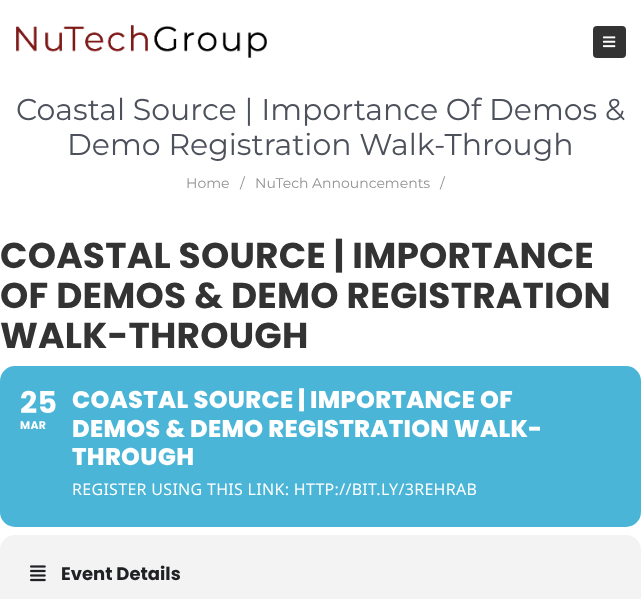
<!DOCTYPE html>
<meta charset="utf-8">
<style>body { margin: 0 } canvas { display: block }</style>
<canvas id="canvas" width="641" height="599"></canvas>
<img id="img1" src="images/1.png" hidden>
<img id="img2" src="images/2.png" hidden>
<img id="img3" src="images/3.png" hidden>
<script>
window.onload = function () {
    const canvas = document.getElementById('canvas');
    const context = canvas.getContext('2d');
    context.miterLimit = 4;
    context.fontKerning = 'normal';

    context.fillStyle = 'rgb(255, 255, 255)';
    context.fillRect(0, 0, 641, 599);
    context.drawImage(document.getElementById('img1'), 16, 25, 251, 33);
    context.fillStyle = 'rgb(51, 51, 51)';
    context.beginPath();
    context.roundRect(593, 26, 33, 32, 4);
    context.fill();
    context.drawImage(document.getElementById('img2'), 603, 36, 13, 12);
    context.fillStyle = 'rgb(75, 181, 216)';
    context.beginPath();
    context.roundRect(0, 366, 641, 161, 15);
    context.fill();
    context.fillStyle = 'rgb(243, 243, 243)';
    context.beginPath();
    context.roundRect(0, 535, 641, 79, 15);
    context.fill();
    context.drawImage(document.getElementById('img3'), 30, 565, 16, 17);
    context.font = '30px Montserrat';
    context.fillStyle = 'rgb(77, 81, 92)';
    context.fillText('Coastal Source | Importance Of Demos &', 16, 120);
    context.fillText('Demo Registration Walk-Through', 67, 155);
    context.font = '14px Montserrat';
    context.fillStyle = 'rgb(145, 145, 145)';
    context.fillText('Home', 186, 188);
    context.fillText('/', 240, 188);
    context.fillText('NuTech Announcements', 255, 188);
    context.fillText('/', 440, 188);
    context.letterSpacing = '0.2px';
    context.font = 'bold 36px Poppins';
    context.fillStyle = 'rgb(51, 51, 51)';
    context.fillText('COASTAL SOURCE | IMPORTANCE', 0, 268);
    context.fillText('OF DEMOS & DEMO REGISTRATION', 0, 308);
    context.fillText('WALK-THROUGH', 0, 348);
    context.letterSpacing = '0.3px';
    context.font = 'bold 30px Poppins';
    context.fillStyle = 'rgb(255, 255, 255)';
    context.fillText('25', 20, 413);
    context.font = 'bold 11px Poppins';
    context.fillText('MAR', 20, 429);
    context.font = '800 24px Poppins';
    context.fillText('COASTAL SOURCE | IMPORTANCE OF', 72, 408);
    context.fillText('DEMOS & DEMO REGISTRATION WALK-', 72, 437);
    context.fillText('THROUGH', 72, 465);
    context.font = '16px Noto Sans';
    context.fillText('REGISTER USING THIS LINK: HTTP://BIT.LY/3REHRAB', 72, 495);
    context.letterSpacing = '0px';
    context.font = 'bold 18px Poppins';
    context.fillStyle = 'rgb(32, 33, 36)';
    context.fillText('Event Details', 61, 580);
};
</script>
